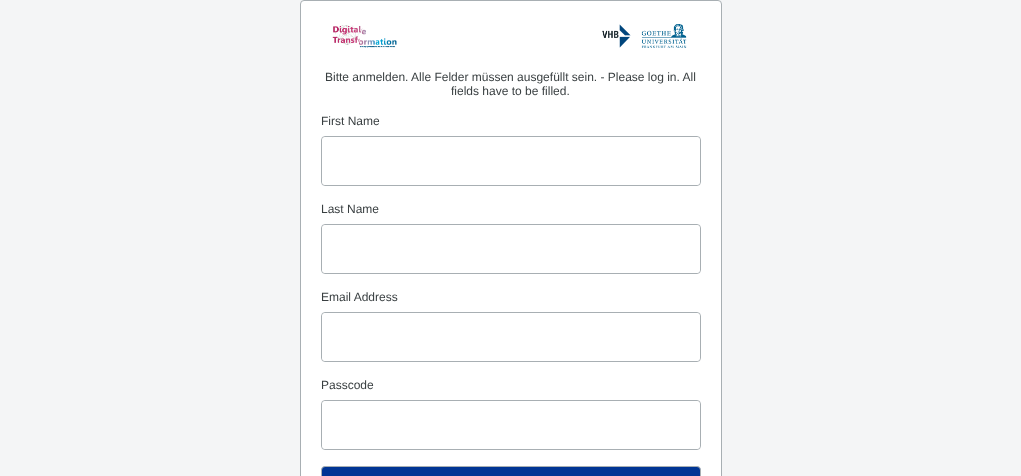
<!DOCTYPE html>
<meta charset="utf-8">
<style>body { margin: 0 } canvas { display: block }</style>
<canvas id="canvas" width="1021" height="476"></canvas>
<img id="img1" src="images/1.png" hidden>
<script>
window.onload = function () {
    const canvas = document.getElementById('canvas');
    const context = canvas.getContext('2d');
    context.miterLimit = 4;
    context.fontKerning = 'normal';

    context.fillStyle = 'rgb(244, 245, 246)';
    context.fillRect(0, 0, 1021, 476);
    context.fillStyle = 'rgb(255, 255, 255)';
    context.beginPath();
    context.roundRect(300.5, 0.5, 421, 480, 3.5);
    context.fill();
    context.strokeStyle = 'rgb(168, 175, 179)';
    context.stroke();
    context.drawImage(document.getElementById('img1'), 332, 24, 355, 24);
    context.beginPath();
    context.roundRect(321.5, 136.5, 379, 49, 3.5);
    context.stroke();
    context.beginPath();
    context.roundRect(322, 137, 378, 48, 4);
    context.fill();
    context.beginPath();
    context.roundRect(321.5, 224.5, 379, 49, 3.5);
    context.stroke();
    context.beginPath();
    context.roundRect(322, 225, 378, 48, 4);
    context.fill();
    context.beginPath();
    context.roundRect(321.5, 312.5, 379, 49, 3.5);
    context.stroke();
    context.beginPath();
    context.roundRect(322, 313, 378, 48, 4);
    context.fill();
    context.beginPath();
    context.roundRect(321.5, 400.5, 379, 49, 3.5);
    context.stroke();
    context.beginPath();
    context.roundRect(322, 401, 378, 48, 4);
    context.fill();
    context.fillStyle = 'rgb(0, 53, 148)';
    context.beginPath();
    context.roundRect(321.5, 466.5, 379, 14, 3.5);
    context.fill();
    context.stroke();
    context.font = '12px Liberation Sans';
    context.fillStyle = 'rgb(57, 63, 65)';
    context.fillText('Bitte anmelden. Alle Felder müssen ausgefüllt sein. - Please log in. All', 325, 81);
    context.fillText('fields have to be filled.', 451, 95);
    context.fillText('First Name', 321, 125);
    context.fillText('Last Name', 321, 213);
    context.fillText('Email Address', 321, 301);
    context.fillText('Passcode', 321, 389);
};
</script>
